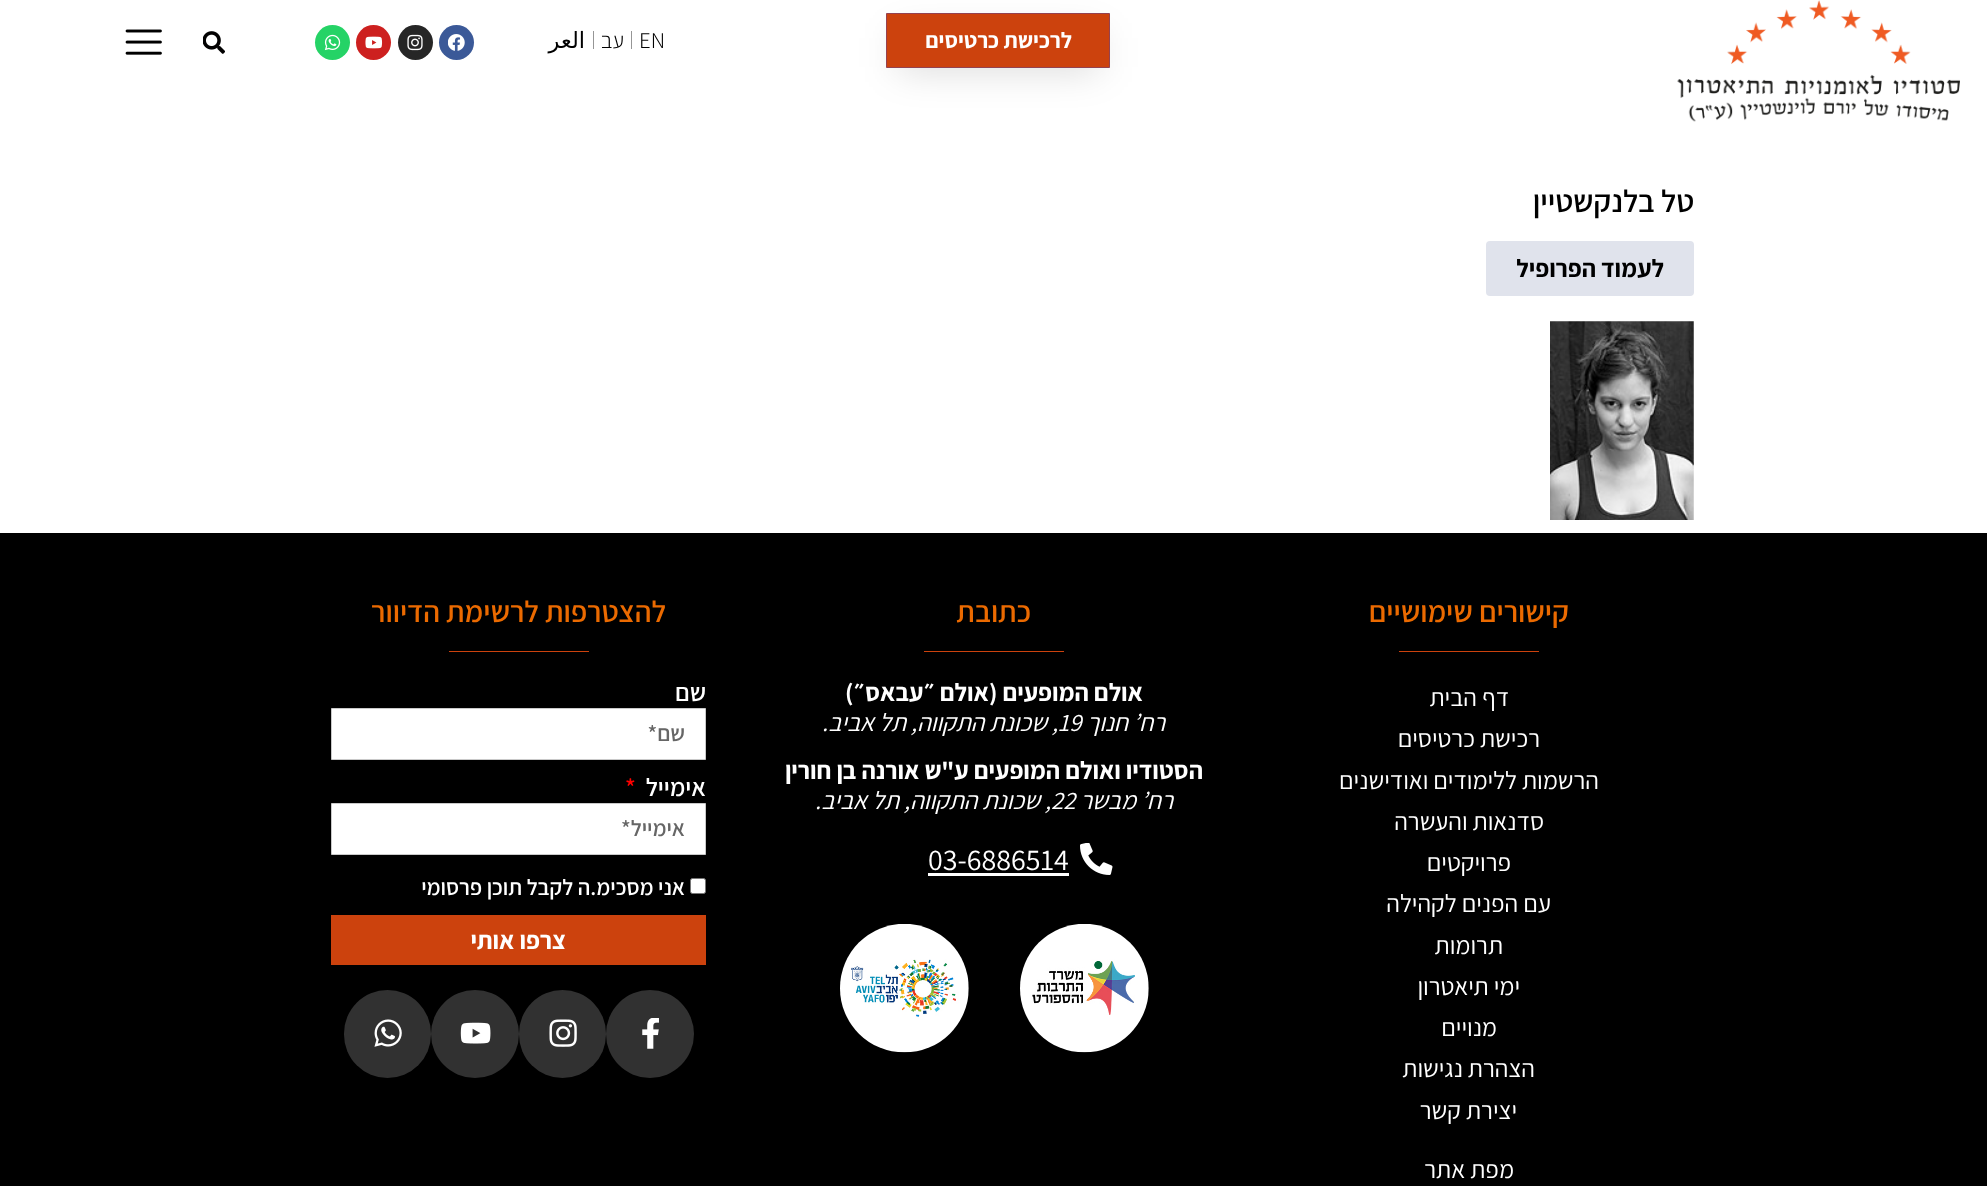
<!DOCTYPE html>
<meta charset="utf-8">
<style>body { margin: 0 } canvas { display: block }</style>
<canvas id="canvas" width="1987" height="1186"></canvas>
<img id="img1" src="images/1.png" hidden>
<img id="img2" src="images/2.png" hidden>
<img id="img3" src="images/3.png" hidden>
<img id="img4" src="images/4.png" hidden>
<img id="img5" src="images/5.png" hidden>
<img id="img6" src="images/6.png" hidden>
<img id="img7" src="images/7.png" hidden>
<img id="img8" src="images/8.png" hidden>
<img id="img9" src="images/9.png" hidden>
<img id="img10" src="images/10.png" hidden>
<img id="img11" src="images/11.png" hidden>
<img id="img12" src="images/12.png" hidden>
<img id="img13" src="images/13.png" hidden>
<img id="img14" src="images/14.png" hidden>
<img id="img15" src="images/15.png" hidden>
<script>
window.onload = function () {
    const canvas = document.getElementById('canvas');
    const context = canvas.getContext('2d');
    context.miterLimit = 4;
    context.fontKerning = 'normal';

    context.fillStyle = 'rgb(255, 255, 255)';
    context.fillRect(0, 0, 1987, 1186);
    context.drawImage(document.getElementById('img1'), 1677, 0, 283, 122);
    context.fillStyle = 'rgba(0, 0, 0, 0.16)';
    context.filter = 'blur(19px)';
    context.beginPath();
    context.rect(898, 36, 201, 33);
    context.fill();
    context.filter = 'none';
    context.fillStyle = 'rgb(204, 66, 13)';
    context.beginPath();
    context.rect(886.5, 13.5, 223, 54);
    context.fill();
    context.strokeStyle = 'rgb(148, 66, 80)';
    context.stroke();
    context.fillStyle = 'rgb(150, 150, 150)';
    context.fillRect(631, 31, 1, 18);
    context.fillRect(593, 31, 1, 18);
    context.fillStyle = 'rgb(59, 89, 152)';
    context.beginPath();
    context.arc(456.5, 42.5, 17.5, 0, 2 * Math.PI);
    context.fill();
    context.drawImage(document.getElementById('img2'), 448, 34, 17, 17);
    context.fillStyle = 'rgb(38, 38, 38)';
    context.beginPath();
    context.arc(415.5, 42.5, 17.5, 0, 2 * Math.PI);
    context.fill();
    context.drawImage(document.getElementById('img3'), 407, 34, 16, 17);
    context.fillStyle = 'rgb(205, 32, 31)';
    context.beginPath();
    context.arc(373.5, 42.5, 17.5, 0, 2 * Math.PI);
    context.fill();
    context.drawImage(document.getElementById('img4'), 365, 36, 18, 13);
    context.fillStyle = 'rgb(37, 211, 102)';
    context.beginPath();
    context.arc(332.5, 42.5, 17.5, 0, 2 * Math.PI);
    context.fill();
    context.drawImage(document.getElementById('img5'), 324, 34, 17, 17);
    context.drawImage(document.getElementById('img6'), 203, 31, 22, 23);
    context.drawImage(document.getElementById('img7'), 125, 29, 37, 26);
    context.fillStyle = 'rgb(224, 227, 236)';
    context.beginPath();
    context.roundRect(1486, 241, 208, 55, 4);
    context.fill();
    context.drawImage(document.getElementById('img8'), 1550, 321, 144, 199);
    context.fillStyle = 'rgb(0, 0, 0)';
    context.fillRect(0, 533, 1987, 653);
    context.fillStyle = 'rgb(204, 66, 13)';
    context.fillRect(1399, 651, 140, 1);
    context.fillRect(924, 651, 140, 1);
    context.drawImage(document.getElementById('img9'), 1080, 843, 33, 32);
    context.fillStyle = 'rgb(255, 255, 255)';
    context.fillRect(928, 873, 141, 3);
    context.drawImage(document.getElementById('img10'), 1020, 924, 129, 129);
    context.drawImage(document.getElementById('img11'), 840, 924, 129, 129);
    context.fillStyle = 'rgb(204, 66, 13)';
    context.fillRect(449, 651, 140, 1);
    context.fillStyle = 'rgb(255, 255, 255)';
    context.beginPath();
    context.rect(331.5, 708.5, 374, 51);
    context.fill();
    context.strokeStyle = 'rgb(201, 201, 201)';
    context.stroke();
    context.beginPath();
    context.rect(331.5, 803.5, 374, 51);
    context.fill();
    context.stroke();
    context.beginPath();
    context.roundRect(690.5, 878.5, 15, 15, 2);
    context.fill();
    context.strokeStyle = 'rgb(118, 118, 118)';
    context.stroke();
    context.fillStyle = 'rgb(204, 66, 13)';
    context.fillRect(331, 915, 375, 50);
    context.fillStyle = 'rgb(49, 49, 49)';
    context.beginPath();
    context.arc(650, 1034, 44, 0, 2 * Math.PI);
    context.fill();
    context.drawImage(document.getElementById('img12'), 642, 1018, 17, 31);
    context.beginPath();
    context.roundRect(519, 990, 87, 88, 43.5);
    context.fill();
    context.drawImage(document.getElementById('img13'), 549, 1019, 28, 28);
    context.beginPath();
    context.arc(475, 1034, 44, 0, 2 * Math.PI);
    context.fill();
    context.drawImage(document.getElementById('img14'), 460, 1022, 31, 22);
    context.beginPath();
    context.roundRect(344, 990, 87, 88, 43.5);
    context.fill();
    context.drawImage(document.getElementById('img15'), 374, 1019, 28, 28);
    context.direction = 'rtl';
    context.font = 'bold 22.5px Assistant';
    context.fillStyle = 'rgb(255, 255, 255)';
    context.fillText('לרכישת כרטיסים', 1072, 48);
    context.direction = 'ltr';
    context.font = '300 22.5px Assistant';
    context.fillStyle = 'rgb(0, 0, 0)';
    context.fillText('EN', 639, 48);
    context.direction = 'rtl';
    context.fillText('עב', 624, 48);
    context.font = '22.5px DejaVu Sans';
    context.fillText('العر', 585, 48);
    context.font = '600 31.25px Assistant';
    context.fillText('טל בלנקשטיין', 1694, 212);
    context.font = 'bold 25px Assistant';
    context.fillText('לעמוד הפרופיל', 1664, 277);
    context.font = '600 30px Assistant';
    context.fillStyle = 'rgb(235, 106, 0)';
    context.fillText('קישורים שימושיים', 1569, 622);
    context.font = '25px Assistant';
    context.fillStyle = 'rgb(255, 255, 255)';
    context.fillText('דף הבית', 1509, 706);
    context.fillText('רכישת כרטיסים', 1540, 747);
    context.fillText('הרשמות ללימודים ואודישנים', 1599, 789);
    context.fillText('סדנאות והעשרה', 1544, 830);
    context.fillText('פרויקטים', 1511, 871);
    context.fillText('עם הפנים לקהילה', 1551, 912);
    context.fillText('תרומות', 1503, 954);
    context.fillText('ימי תיאטרון', 1520, 995);
    context.fillText('מנויים', 1497, 1036);
    context.fillText('הצהרת נגישות', 1535, 1077);
    context.fillText('יצירת קשר', 1517, 1119);
    context.fillText('מפת אתר', 1514, 1178);
    context.font = '600 30px Assistant';
    context.fillStyle = 'rgb(235, 106, 0)';
    context.fillText('כתובת', 1031, 622);
    context.font = 'bold 25px Assistant';
    context.fillStyle = 'rgb(255, 255, 255)';
    context.fillText('אולם המופעים (אולם ״עבאס״)', 1143, 701);
    context.font = 'italic 25px Assistant';
    context.fillText('רח’ חנוך', 1165, 731);
    context.direction = 'ltr';
    context.fillText('19', 1058, 731);
    context.direction = 'rtl';
    context.fillText(', שכונת התקווה, תל אביב.', 1058, 731);
    context.font = 'bold 25px Assistant';
    context.fillText('הסטודיו ואולם המופעים ע"ש אורנה בן חורין', 1203, 779);
    context.font = 'italic 25px Assistant';
    context.fillText('רח’ מבשר', 1173, 809);
    context.direction = 'ltr';
    context.fillText('22', 1051, 809);
    context.direction = 'rtl';
    context.fillText(', שכונת התקווה, תל אביב.', 1051, 809);
    context.direction = 'ltr';
    context.font = '30px Assistant';
    context.fillText('03-6886514', 928, 870);
    context.direction = 'rtl';
    context.font = '600 30px Assistant';
    context.fillStyle = 'rgb(235, 106, 0)';
    context.fillText('להצטרפות לרשימת הדיוור', 666, 622);
    context.font = '600 25px Assistant';
    context.fillStyle = 'rgb(255, 255, 255)';
    context.fillText('שם', 706, 701);
    context.font = '600 22.5px Assistant';
    context.fillStyle = 'rgb(102, 102, 102)';
    context.fillText('שם*', 685, 741);
    context.font = '600 25px Assistant';
    context.fillStyle = 'rgb(255, 255, 255)';
    context.fillText('אימייל', 706, 796);
    context.direction = 'ltr';
    context.fillStyle = 'rgb(255, 0, 0)';
    context.fillText('*', 625, 796);
    context.direction = 'rtl';
    context.font = '600 22.5px Assistant';
    context.fillStyle = 'rgb(102, 102, 102)';
    context.fillText('אימייל*', 685, 836);
    context.fillStyle = 'rgb(255, 255, 255)';
    context.fillText('אני מסכימ.ה לקבל תוכן פרסומי', 685, 895);
    context.font = 'bold 25px Assistant';
    context.fillText('צרפו אותי', 566, 949);
};
</script>
